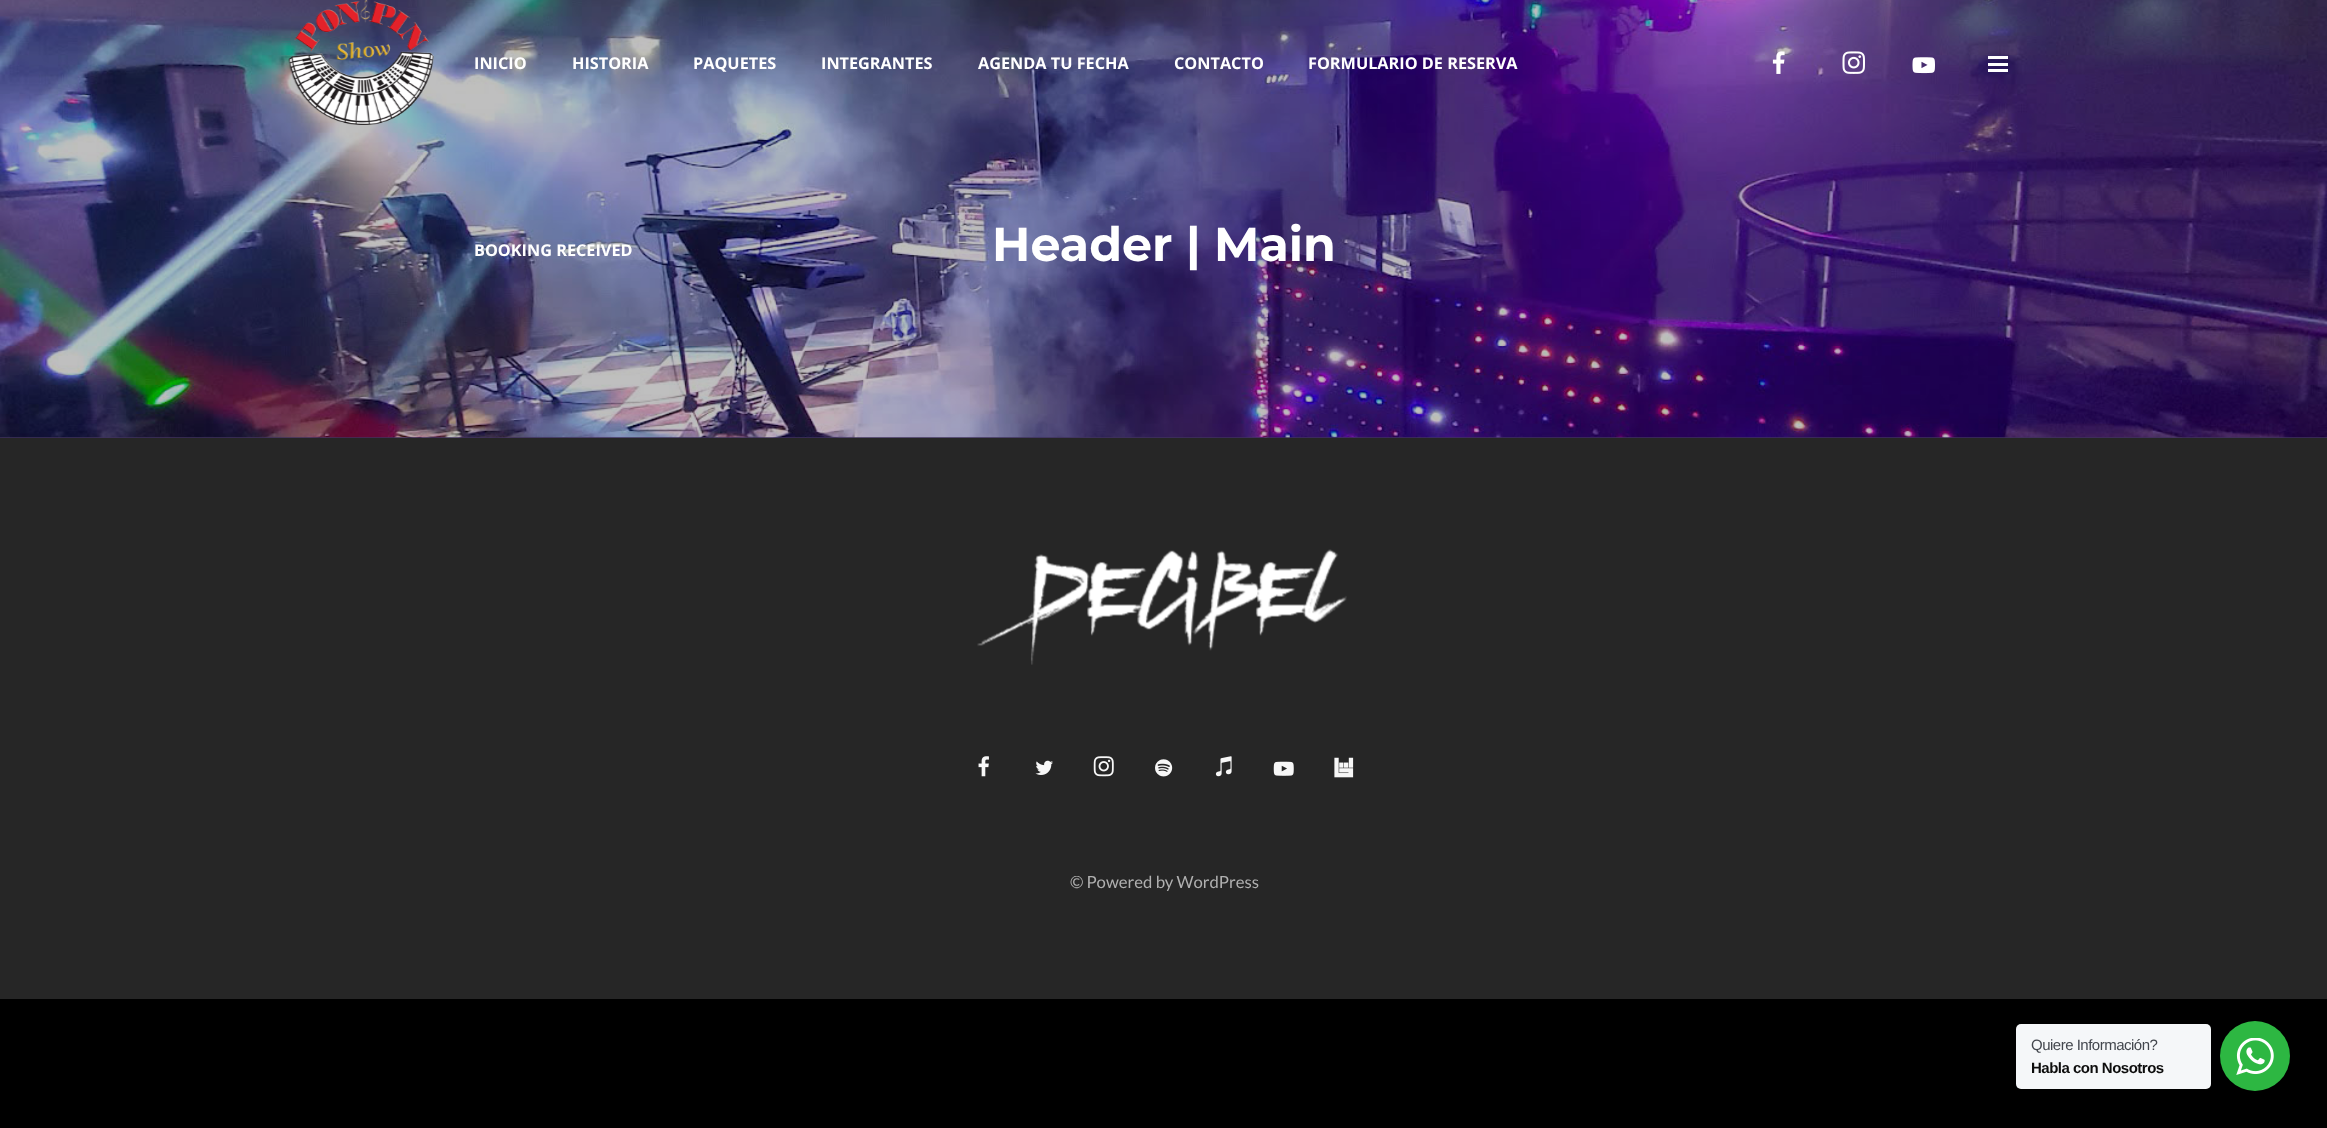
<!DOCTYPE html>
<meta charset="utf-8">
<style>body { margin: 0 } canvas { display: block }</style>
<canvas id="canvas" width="2327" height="1128"></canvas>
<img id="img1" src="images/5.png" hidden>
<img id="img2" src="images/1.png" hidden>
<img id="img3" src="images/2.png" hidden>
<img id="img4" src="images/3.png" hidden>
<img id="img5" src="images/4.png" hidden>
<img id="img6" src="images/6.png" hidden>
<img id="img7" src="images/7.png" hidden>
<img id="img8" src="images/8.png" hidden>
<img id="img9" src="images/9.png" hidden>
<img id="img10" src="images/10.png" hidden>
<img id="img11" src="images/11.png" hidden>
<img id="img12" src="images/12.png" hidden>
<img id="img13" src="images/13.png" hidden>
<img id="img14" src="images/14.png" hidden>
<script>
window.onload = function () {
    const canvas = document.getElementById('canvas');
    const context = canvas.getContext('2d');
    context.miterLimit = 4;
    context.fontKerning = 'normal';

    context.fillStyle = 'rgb(0, 0, 0)';
    context.fillRect(0, 0, 2327, 1128);
    context.fillStyle = 'rgb(86, 69, 122)';
    context.fillRect(0, 437, 2327, 1);
    context.drawImage(document.getElementById('img1'), 0, 0, 2327, 438);
    context.fillStyle = 'rgba(0, 0, 0, 0.25)';
    context.fillRect(0, 0, 2327, 438);
    context.drawImage(document.getElementById('img2'), 288, 0, 146, 125);
    context.drawImage(document.getElementById('img3'), 1772, 51, 13, 23);
    context.drawImage(document.getElementById('img4'), 1842, 51, 23, 23);
    context.drawImage(document.getElementById('img5'), 1912, 57, 23, 17);
    context.fillStyle = 'rgb(255, 255, 255)';
    context.fillRect(1988, 56, 20, 3);
    context.fillRect(1988, 63, 20, 3);
    context.fillRect(1988, 69, 20, 3);
    context.fillStyle = 'rgb(38, 38, 38)';
    context.fillRect(0, 438, 2327, 561);
    context.drawImage(document.getElementById('img6'), 977, 549, 370, 116);
    context.drawImage(document.getElementById('img7'), 978, 756, 11, 21);
    context.drawImage(document.getElementById('img8'), 1035, 760, 18, 15);
    context.drawImage(document.getElementById('img9'), 1093, 756, 21, 21);
    context.drawImage(document.getElementById('img10'), 1155, 759, 18, 18);
    context.drawImage(document.getElementById('img11'), 1215, 756, 17, 21);
    context.drawImage(document.getElementById('img12'), 1273, 761, 21, 15);
    context.drawImage(document.getElementById('img13'), 1334, 757, 20, 21);
    context.fillStyle = 'rgb(245, 247, 249)';
    context.beginPath();
    context.roundRect(2016, 1024, 195, 65, 5);
    context.fill();
    context.fillStyle = 'rgb(45, 183, 66)';
    context.beginPath();
    context.arc(2255, 1056, 35, 0, 2 * Math.PI);
    context.fill();
    context.drawImage(document.getElementById('img14'), 2236, 1038, 38, 37);
    context.font = 'bold 16.25px Open Sans';
    context.fillStyle = 'rgb(255, 255, 255)';
    context.fillText('INICIO', 474, 69);
    context.fillText('HISTORIA', 572, 69);
    context.fillText('PAQUETES', 693, 69);
    context.fillText('INTEGRANTES', 821, 69);
    context.fillText('AGENDA TU FECHA', 978, 69);
    context.fillText('CONTACTO', 1174, 69);
    context.fillText('FORMULARIO DE RESERVA', 1308, 69);
    context.fillText('BOOKING RECEIVED', 474, 256);
    context.font = 'bold 47.5px Montserrat';
    context.fillText('Header | Main', 992, 261);
    context.font = '16.75px Lato';
    context.fillStyle = 'rgb(176, 176, 176)';
    context.fillText('© Powered by WordPress', 1070, 888);
    context.letterSpacing = '-0.5px';
    context.font = '15px Liberation Sans';
    context.fillStyle = 'rgb(67, 71, 78)';
    context.fillText('Quiere Información?', 2031, 1050);
    context.font = 'bold 15px Liberation Sans';
    context.fillStyle = 'rgb(13, 13, 13)';
    context.fillText('Habla con Nosotros', 2031, 1073);
};
</script>
